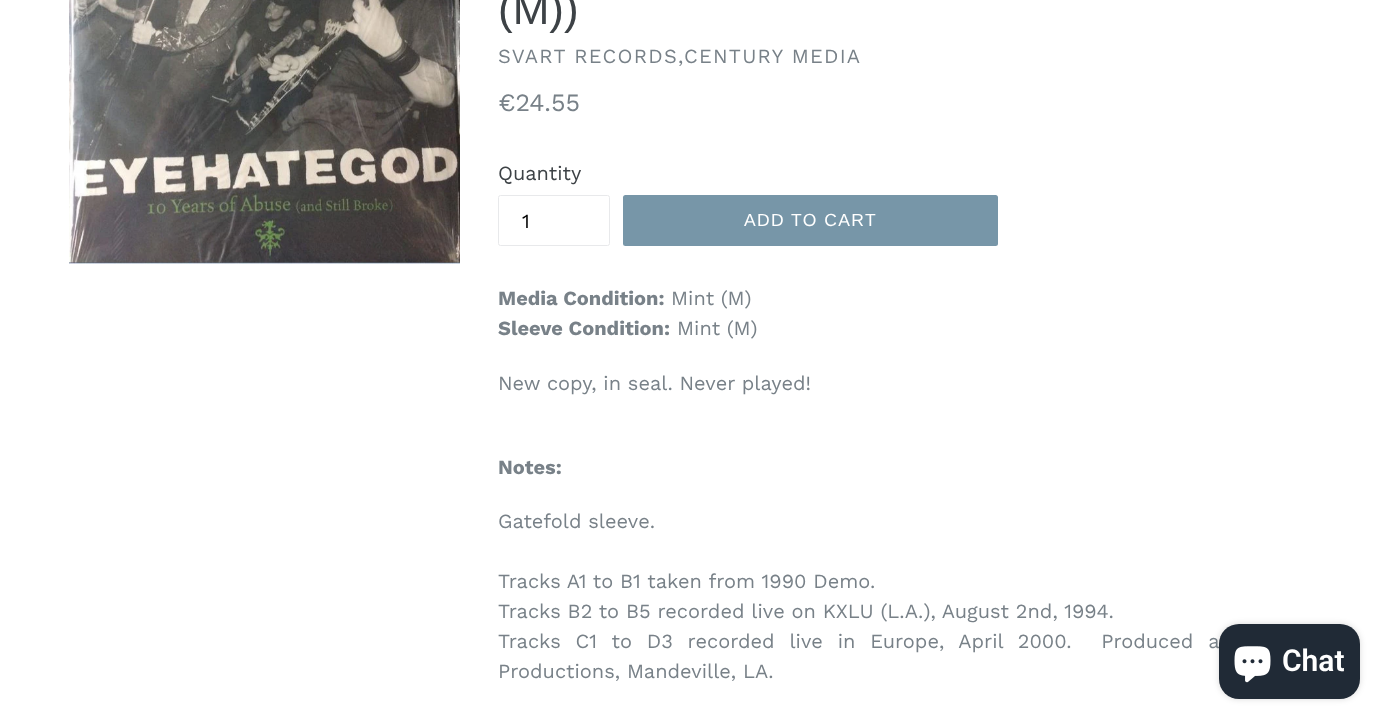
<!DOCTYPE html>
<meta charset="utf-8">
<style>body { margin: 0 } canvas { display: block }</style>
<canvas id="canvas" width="1387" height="724"></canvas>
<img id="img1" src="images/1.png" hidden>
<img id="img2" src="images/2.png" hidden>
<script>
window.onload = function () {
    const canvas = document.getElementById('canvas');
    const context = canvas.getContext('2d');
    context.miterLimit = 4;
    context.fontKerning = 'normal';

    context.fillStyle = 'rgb(255, 255, 255)';
    context.fillRect(0, 0, 1387, 724);
    context.drawImage(document.getElementById('img1'), 69, 0, 391, 264);
    context.beginPath();
    context.roundRect(498.5, 195.5, 111, 50, 2);
    context.strokeStyle = 'rgb(232, 233, 235)';
    context.stroke();
    context.fillStyle = 'rgb(119, 150, 168)';
    context.beginPath();
    context.roundRect(623, 195, 375, 51, 2.5);
    context.fill();
    context.fillStyle = 'rgba(0, 0, 0, 0.15)';
    context.filter = 'blur(3px)';
    context.beginPath();
    context.roundRect(1219, 624, 141, 75, 20);
    context.fill();
    context.filter = 'none';
    context.fillStyle = 'rgb(32, 42, 54)';
    context.beginPath();
    context.roundRect(1219, 624, 141, 75, 20);
    context.fill();
    context.drawImage(document.getElementById('img2'), 1234, 646, 37, 37);
    context.font = '44px Liberation Sans';
    context.fillStyle = 'rgb(61, 66, 70)';
    context.fillText('(M))', 498, 24);
    context.letterSpacing = '1.25px';
    context.font = '20px Work Sans';
    context.fillStyle = 'rgb(120, 129, 136)';
    context.fillText('SVART RECORDS,CENTURY MEDIA', 498, 63);
    context.letterSpacing = '0px';
    context.font = '25px Work Sans';
    context.fillText('€24.55', 498, 111);
    context.font = '20px Work Sans';
    context.fillStyle = 'rgb(61, 66, 70)';
    context.fillText('Quantity', 498, 180);
    context.fillStyle = 'rgb(0, 0, 0)';
    context.fillText('1', 522, 228);
    context.letterSpacing = '1.4px';
    context.font = '17.5px Liberation Sans';
    context.fillStyle = 'rgb(255, 255, 255)';
    context.fillText('ADD TO CART', 744, 226);
    context.letterSpacing = '0px';
    context.font = 'bold 20px Work Sans';
    context.fillStyle = 'rgb(120, 129, 136)';
    context.fillText('Media Condition:', 498, 305);
    context.font = '20px Work Sans';
    context.fillText('Mint (M)', 671, 305);
    context.font = 'bold 20px Work Sans';
    context.fillText('Sleeve Condition:', 498, 335);
    context.font = '20px Work Sans';
    context.fillText('Mint (M)', 677, 335);
    context.fillText('New copy, in seal. Never played!', 498, 390);
    context.font = 'bold 20px Work Sans';
    context.fillText('Notes:', 498, 474);
    context.font = '20px Work Sans';
    context.fillText('Gatefold sleeve.', 498, 528);
    context.fillText('Tracks A1 to B1 taken from 1990 Demo.', 498, 588);
    context.fillText('Tracks B2 to B5 recorded live on KXLU (L.A.), August 2nd, 1994.', 498, 618);
    context.wordSpacing = '8px';
    context.fillText('Tracks C1 to D3 recorded live in Europe, April 2000.  Produced a', 498, 648);
    context.wordSpacing = '0px';
    context.fillText('Productions, Mandeville, LA.', 498, 678);
    context.font = '600 30px Roboto';
    context.fillStyle = 'rgb(255, 255, 255)';
    context.fillText('Chat', 1282, 671);
};
</script>
